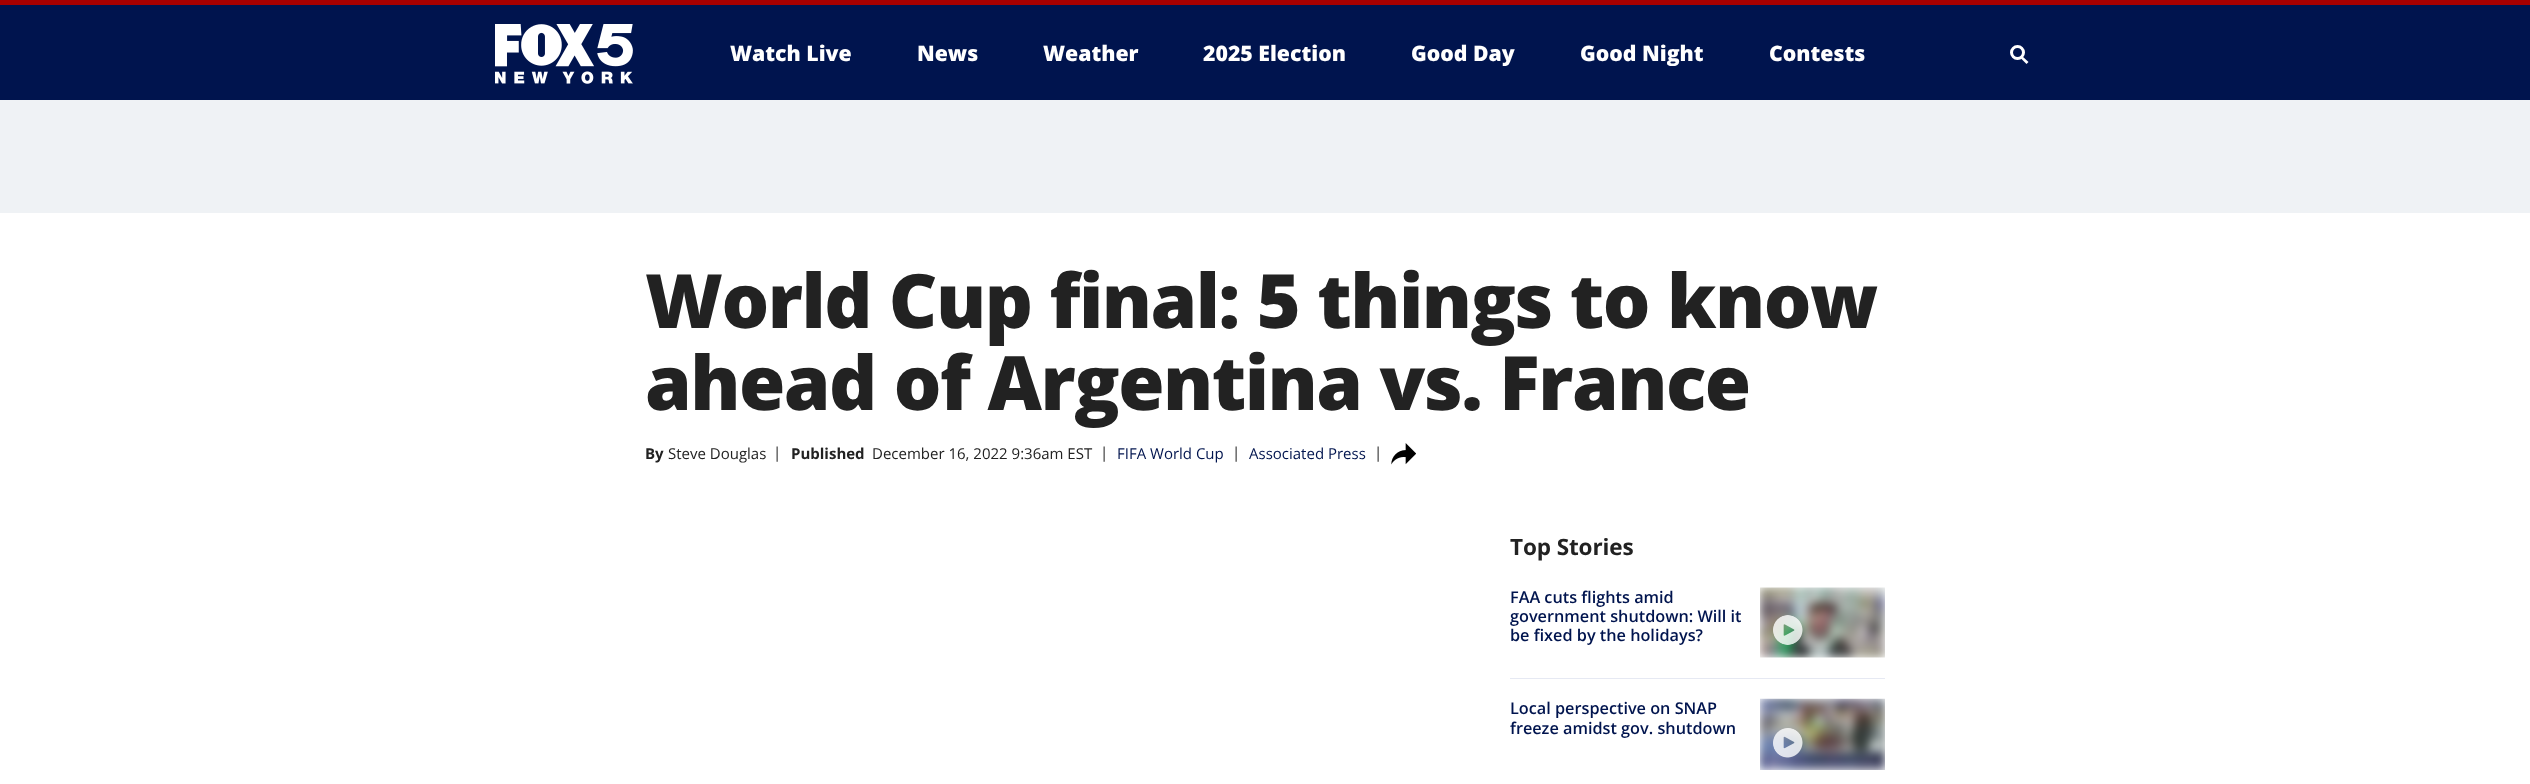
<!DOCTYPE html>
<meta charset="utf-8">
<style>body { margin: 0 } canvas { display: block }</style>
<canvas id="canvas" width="2530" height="784"></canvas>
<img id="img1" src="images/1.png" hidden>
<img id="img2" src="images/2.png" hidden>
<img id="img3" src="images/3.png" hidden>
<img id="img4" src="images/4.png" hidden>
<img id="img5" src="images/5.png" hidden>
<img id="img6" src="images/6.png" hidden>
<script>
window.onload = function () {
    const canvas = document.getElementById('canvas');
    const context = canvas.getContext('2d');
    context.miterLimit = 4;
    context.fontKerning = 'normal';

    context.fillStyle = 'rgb(255, 255, 255)';
    context.fillRect(0, 0, 2530, 784);
    context.fillStyle = 'rgb(0, 20, 78)';
    context.fillRect(0, 5, 2530, 95);
    context.fillStyle = 'rgb(167, 0, 0)';
    context.fillRect(0, 0, 2530, 5);
    context.drawImage(document.getElementById('img1'), 495, 24, 138, 60);
    context.beginPath();
    context.arc(2017.5, 52.5, 6, 0, 2 * Math.PI);
    context.strokeStyle = 'rgb(255, 255, 255)';
    context.lineWidth = 3;
    context.stroke();
    context.fillStyle = 'rgb(255, 255, 255)';
    context.beginPath();
    context.moveTo(2022, 56);
    context.lineTo(2028.5, 62);
    context.lineTo(2026.5, 64);
    context.lineTo(2020.5, 58);
    context.closePath();
    context.fill();
    context.fillStyle = 'rgb(239, 242, 245)';
    context.fillRect(0, 100, 2530, 113);
    context.drawImage(document.getElementById('img2'), 1391, 443, 25, 22);
    context.fillStyle = 'rgb(230, 233, 243)';
    context.fillRect(1510, 678, 375, 1);
    context.drawImage(document.getElementById('img3'), 1760, 587, 125, 71);
    context.drawImage(document.getElementById('img4'), 1773, 615, 30, 30);
    context.drawImage(document.getElementById('img5'), 1760, 698, 125, 72);
    context.drawImage(document.getElementById('img6'), 1773, 728, 30, 30);
    context.font = '800 21.25px Open Sans';
    context.fillStyle = 'rgb(255, 255, 255)';
    context.fillText('Watch Live', 730, 61);
    context.fillText('News', 917, 61);
    context.fillText('Weather', 1043, 61);
    context.fillText('2025 Election', 1203, 61);
    context.fillText('Good Day', 1411, 61);
    context.fillText('Good Night', 1580, 61);
    context.fillText('Contests', 1769, 61);
    context.letterSpacing = '-1.5px';
    context.font = '800 75px Open Sans';
    context.fillStyle = 'rgb(34, 34, 34)';
    context.fillText('World Cup final: 5 things to know', 645, 328);
    context.fillText('ahead of Argentina vs. France', 645, 410);
    context.letterSpacing = '0px';
    context.font = 'bold 15px Open Sans';
    context.fillText('By', 645, 459);
    context.font = '15px Open Sans';
    context.fillText('Steve Douglas', 668, 459);
    context.fillText('|', 773, 458);
    context.font = 'bold 15px Open Sans';
    context.fillText('Published', 791, 459);
    context.font = '15px Open Sans';
    context.fillText('December 16, 2022 9:36am EST', 872, 459);
    context.fillText('|', 1100, 458);
    context.fillStyle = 'rgb(0, 20, 78)';
    context.fillText('FIFA World Cup', 1117, 459);
    context.fillStyle = 'rgb(34, 34, 34)';
    context.fillText('|', 1232, 458);
    context.fillStyle = 'rgb(0, 20, 78)';
    context.fillText('Associated Press', 1249, 459);
    context.fillStyle = 'rgb(34, 34, 34)';
    context.fillText('|', 1374, 458);
    context.letterSpacing = '-0.1px';
    context.font = 'bold 22.5px Open Sans';
    context.fillText('Top Stories', 1510, 555);
    context.letterSpacing = '0px';
    context.font = '600 16.25px Open Sans';
    context.fillStyle = 'rgb(0, 20, 78)';
    context.fillText('FAA cuts flights amid', 1510, 603);
    context.fillText('government shutdown: Will it', 1510, 622);
    context.fillText('be fixed by the holidays?', 1510, 641);
    context.fillText('Local perspective on SNAP', 1510, 714);
    context.fillText('freeze amidst gov. shutdown', 1510, 734);
};
</script>
